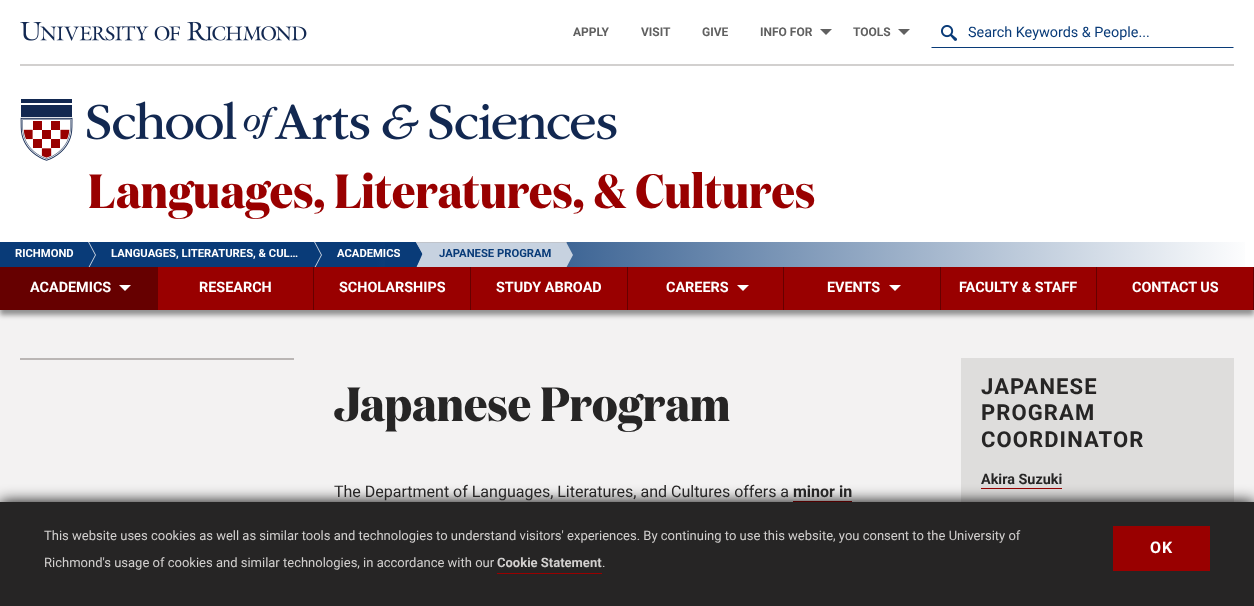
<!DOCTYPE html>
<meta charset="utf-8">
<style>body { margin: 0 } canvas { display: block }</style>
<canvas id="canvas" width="1254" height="606"></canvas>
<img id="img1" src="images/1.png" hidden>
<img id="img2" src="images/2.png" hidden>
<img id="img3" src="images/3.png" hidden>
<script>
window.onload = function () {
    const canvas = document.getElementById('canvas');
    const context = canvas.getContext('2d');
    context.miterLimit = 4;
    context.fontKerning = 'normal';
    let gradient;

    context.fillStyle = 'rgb(255, 255, 255)';
    context.fillRect(0, 0, 1254, 606);
    context.fillStyle = 'rgb(210, 208, 207)';
    context.fillRect(20, 64, 1214, 2);
    context.drawImage(document.getElementById('img1'), 20, 21, 287, 20);
    context.fillStyle = 'rgb(96, 96, 96)';
    context.beginPath();
    context.moveTo(820, 29);
    context.lineTo(832, 29);
    context.lineTo(826, 35);
    context.closePath();
    context.fill();
    context.beginPath();
    context.moveTo(898, 29);
    context.lineTo(910, 29);
    context.lineTo(904, 35);
    context.closePath();
    context.fill();
    context.drawImage(document.getElementById('img2'), 941, 25, 16, 16);
    context.fillStyle = 'rgb(9, 59, 120)';
    context.beginPath();
    context.moveTo(1234, 48);
    context.lineTo(931, 48);
    context.lineTo(932, 47);
    context.lineTo(1233, 47);
    context.closePath();
    context.fill();
    context.drawImage(document.getElementById('img3'), 20, 99, 597, 62);
    context.fillStyle = 'rgb(243, 242, 242)';
    context.fillRect(0, 310, 1254, 192);
    context.fillStyle = 'rgba(0, 0, 0, 0.4)';
    context.filter = 'blur(2.5px)';
    context.beginPath();
    context.rect(0, 272, 1254, 43);
    context.fill();
    context.filter = 'none';
    gradient = context.createLinearGradient(0, 255, 1254, 254);
    gradient.addColorStop(0.3, 'rgb(9, 59, 120)');
    gradient.addColorStop(1, 'rgb(255, 255, 255)');
    context.fillStyle = gradient;
    context.fillRect(0, 242, 1245, 25);
    context.save();
    context.beginPath();
    context.rect(0, 242, 1254, 25);
    context.clip();
    context.fillStyle = 'rgb(199, 210, 224)';
    context.beginPath();
    context.moveTo(88, 270);
    context.lineTo(88, 240);
    context.lineTo(96, 255);
    context.closePath();
    context.fill();
    context.fillStyle = 'rgb(9, 59, 120)';
    context.beginPath();
    context.moveTo(87, 270);
    context.lineTo(87, 240);
    context.lineTo(95, 255);
    context.closePath();
    context.fill();
    context.fillStyle = 'rgb(199, 210, 224)';
    context.beginPath();
    context.moveTo(314, 270);
    context.lineTo(314, 240);
    context.lineTo(322, 255);
    context.closePath();
    context.fill();
    context.fillStyle = 'rgb(9, 59, 120)';
    context.beginPath();
    context.moveTo(313, 270);
    context.lineTo(313, 240);
    context.lineTo(321, 255);
    context.closePath();
    context.fill();
    context.restore();
    context.fillStyle = 'rgb(9, 59, 120)';
    context.fillRect(385, 242, 30, 25);
    context.save();
    context.beginPath();
    context.rect(0, 242, 1254, 25);
    context.clip();
    context.fillStyle = 'rgb(199, 210, 224)';
    context.beginPath();
    context.moveTo(416, 270);
    context.lineTo(416, 240);
    context.lineTo(424, 255);
    context.closePath();
    context.fill();
    context.fillStyle = 'rgb(9, 59, 120)';
    context.beginPath();
    context.moveTo(415, 270);
    context.lineTo(415, 240);
    context.lineTo(423, 255);
    context.closePath();
    context.fill();
    context.fillStyle = 'rgb(199, 210, 224)';
    context.beginPath();
    context.moveTo(565, 270);
    context.lineTo(565, 240);
    context.lineTo(573, 255);
    context.closePath();
    context.fill();
    context.restore();
    context.fillStyle = 'rgb(199, 210, 224)';
    context.fillRect(424, 242, 141, 25);
    context.save();
    context.beginPath();
    context.rect(0, 242, 1254, 25);
    context.clip();
    context.beginPath();
    context.moveTo(415, 271);
    context.lineTo(423, 252.5);
    context.lineTo(428, 266);
    context.closePath();
    context.fill();
    context.beginPath();
    context.moveTo(424, 256);
    context.lineTo(414, 239);
    context.lineTo(428, 242.5);
    context.closePath();
    context.fill();
    context.restore();
    context.fillStyle = 'rgba(186, 182, 181, 0.5)';
    context.fillRect(416, 242, 151, 1);
    context.fillStyle = 'rgb(153, 0, 0)';
    context.fillRect(158, 267, 1095, 43);
    context.fillStyle = 'rgb(102, 0, 0)';
    context.fillRect(1253, 267, 1, 43);
    context.fillRect(0, 267, 158, 43);
    context.fillStyle = 'rgb(255, 255, 255)';
    context.beginPath();
    context.moveTo(119, 285);
    context.lineTo(131, 285);
    context.lineTo(125, 291);
    context.closePath();
    context.fill();
    context.fillStyle = 'rgb(102, 0, 0)';
    context.fillRect(313, 267, 1, 43);
    context.fillRect(470, 267, 1, 43);
    context.fillRect(627, 267, 1, 43);
    context.fillRect(783, 267, 1, 43);
    context.fillStyle = 'rgb(255, 255, 255)';
    context.beginPath();
    context.moveTo(737, 285);
    context.lineTo(749, 285);
    context.lineTo(743, 291);
    context.closePath();
    context.fill();
    context.fillStyle = 'rgb(102, 0, 0)';
    context.fillRect(940, 267, 1, 43);
    context.fillStyle = 'rgb(255, 255, 255)';
    context.beginPath();
    context.moveTo(889, 285);
    context.lineTo(901, 285);
    context.lineTo(895, 291);
    context.closePath();
    context.fill();
    context.fillStyle = 'rgb(102, 0, 0)';
    context.fillRect(1096, 267, 1, 43);
    context.fillStyle = 'rgb(186, 182, 181)';
    context.fillRect(20, 358, 274, 2);
    context.fillStyle = 'rgb(153, 0, 0)';
    context.fillRect(793, 501, 59, 1);
    context.fillStyle = 'rgb(222, 221, 220)';
    context.fillRect(961, 358, 273, 144);
    context.fillStyle = 'rgb(153, 0, 0)';
    context.fillRect(981, 488, 81, 1);
    context.fillStyle = 'rgb(0, 0, 0)';
    context.filter = 'blur(7.5px)';
    context.beginPath();
    context.rect(0, 502, 1254, 104);
    context.fill();
    context.filter = 'none';
    context.fillStyle = 'rgb(38, 37, 37)';
    context.fillRect(0, 502, 1254, 104);
    context.fillStyle = 'rgb(153, 0, 0)';
    context.fillRect(497, 573, 105, 1);
    context.fillRect(1113, 526, 97, 45);
    context.font = 'bold 12px Roboto';
    context.fillStyle = 'rgb(96, 96, 96)';
    context.fillText('APPLY', 573, 36);
    context.fillText('VISIT', 641, 36);
    context.fillText('GIVE', 702, 36);
    context.fillText('INFO FOR', 760, 36);
    context.fillText('TOOLS', 853, 36);
    context.font = '14.4px Roboto';
    context.fillStyle = 'rgb(9, 59, 120)';
    context.fillText('Search Keywords & People...', 968, 37);
    context.font = 'bold 48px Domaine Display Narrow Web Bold';
    context.fillStyle = 'rgb(153, 0, 0)';
    context.fillText('Languages, Literatures, & Cultures', 88, 208);
    context.font = 'bold 11.25px Roboto';
    context.fillStyle = 'rgb(255, 255, 255)';
    context.fillText('RICHMOND', 15, 257);
    context.fillText('LANGUAGES, LITERATURES, & CUL…', 111, 257);
    context.fillText('ACADEMICS', 337, 257);
    context.fillStyle = 'rgb(9, 59, 120)';
    context.fillText('JAPANESE PROGRAM', 439, 257);
    context.font = 'bold 14.4px Roboto';
    context.fillStyle = 'rgb(255, 255, 255)';
    context.fillText('ACADEMICS', 30, 292);
    context.fillText('RESEARCH', 199, 292);
    context.fillText('SCHOLARSHIPS', 339, 292);
    context.fillText('STUDY ABROAD', 496, 292);
    context.fillText('CAREERS', 666, 292);
    context.fillText('EVENTS', 827, 292);
    context.fillText('FACULTY & STAFF', 959, 292);
    context.fillText('CONTACT US', 1132, 292);
    context.font = 'bold 48px Domaine Display Narrow Web Bold';
    context.fillStyle = 'rgb(38, 37, 37)';
    context.fillText('Japanese Program', 334, 421);
    context.font = '16px Roboto';
    context.fillText('The Department of Languages, Literatures, and Cultures offers a', 334, 497);
    context.font = 'bold 16px Roboto';
    context.fillText('minor in', 793, 497);
    context.letterSpacing = '1.1px';
    context.font = 'bold 22px Roboto';
    context.fillText('JAPANESE', 981, 394);
    context.fillText('PROGRAM', 981, 420);
    context.fillText('COORDINATOR', 981, 447);
    context.letterSpacing = '0px';
    context.font = 'bold 14.4px Roboto';
    context.fillText('Akira Suzuki', 981, 484);
    context.font = '13px Roboto';
    context.fillStyle = 'rgb(210, 208, 207)';
    context.fillText('This website uses cookies as well as similar tools and technologies to understand visitors\' experiences. By continuing to use this website, you consent to the University of', 44, 540);
    context.fillText('Richmond\'s usage of cookies and similar technologies, in accordance with our', 44, 567);
    context.font = 'bold 13px Roboto';
    context.fillText('Cookie Statement', 497, 567);
    context.font = '13px Roboto';
    context.fillText('.', 602, 567);
    context.letterSpacing = '1px';
    context.font = 'bold 16px Roboto';
    context.fillStyle = 'rgb(255, 255, 255)';
    context.fillText('OK', 1150, 553);
};
</script>
